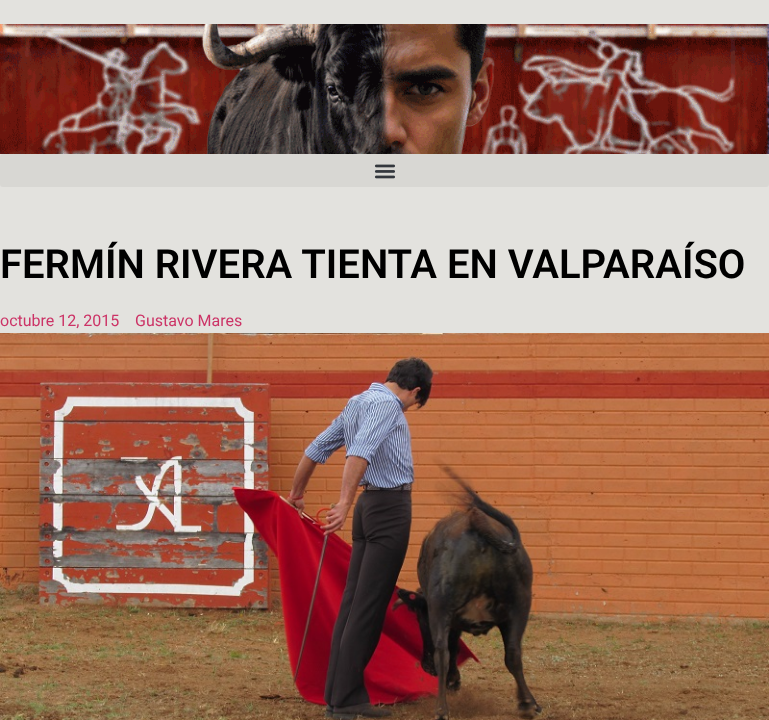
<!DOCTYPE html>
<meta charset="utf-8">
<style>body { margin: 0 } canvas { display: block }</style>
<canvas id="canvas" width="769" height="720"></canvas>
<img id="img1" src="images/1.png" hidden>
<img id="img2" src="images/2.png" hidden>
<img id="img3" src="images/3.png" hidden>
<script>
window.onload = function () {
    const canvas = document.getElementById('canvas');
    const context = canvas.getContext('2d');
    context.miterLimit = 4;
    context.fontKerning = 'normal';

    context.fillStyle = 'rgb(227, 226, 222)';
    context.fillRect(0, 0, 769, 720);
    context.drawImage(document.getElementById('img1'), 0, 24, 769, 130);
    context.fillStyle = 'rgb(216, 215, 211)';
    context.beginPath();
    context.roundRect(0, 154, 769, 33, 3);
    context.fill();
    context.drawImage(document.getElementById('img2'), 374, 164, 21, 15);
    context.drawImage(document.getElementById('img3'), 0, 333, 769, 387);
    context.font = '600 40px Roboto';
    context.fillStyle = 'rgb(0, 0, 0)';
    context.fillText('FERMÍN RIVERA TIENTA EN VALPARAÍSO', 0, 278);
    context.font = '16px Roboto';
    context.fillStyle = 'rgb(204, 51, 102)';
    context.fillText('octubre 12, 2015', 0, 326);
    context.fillText('Gustavo Mares', 135, 326);
};
</script>
